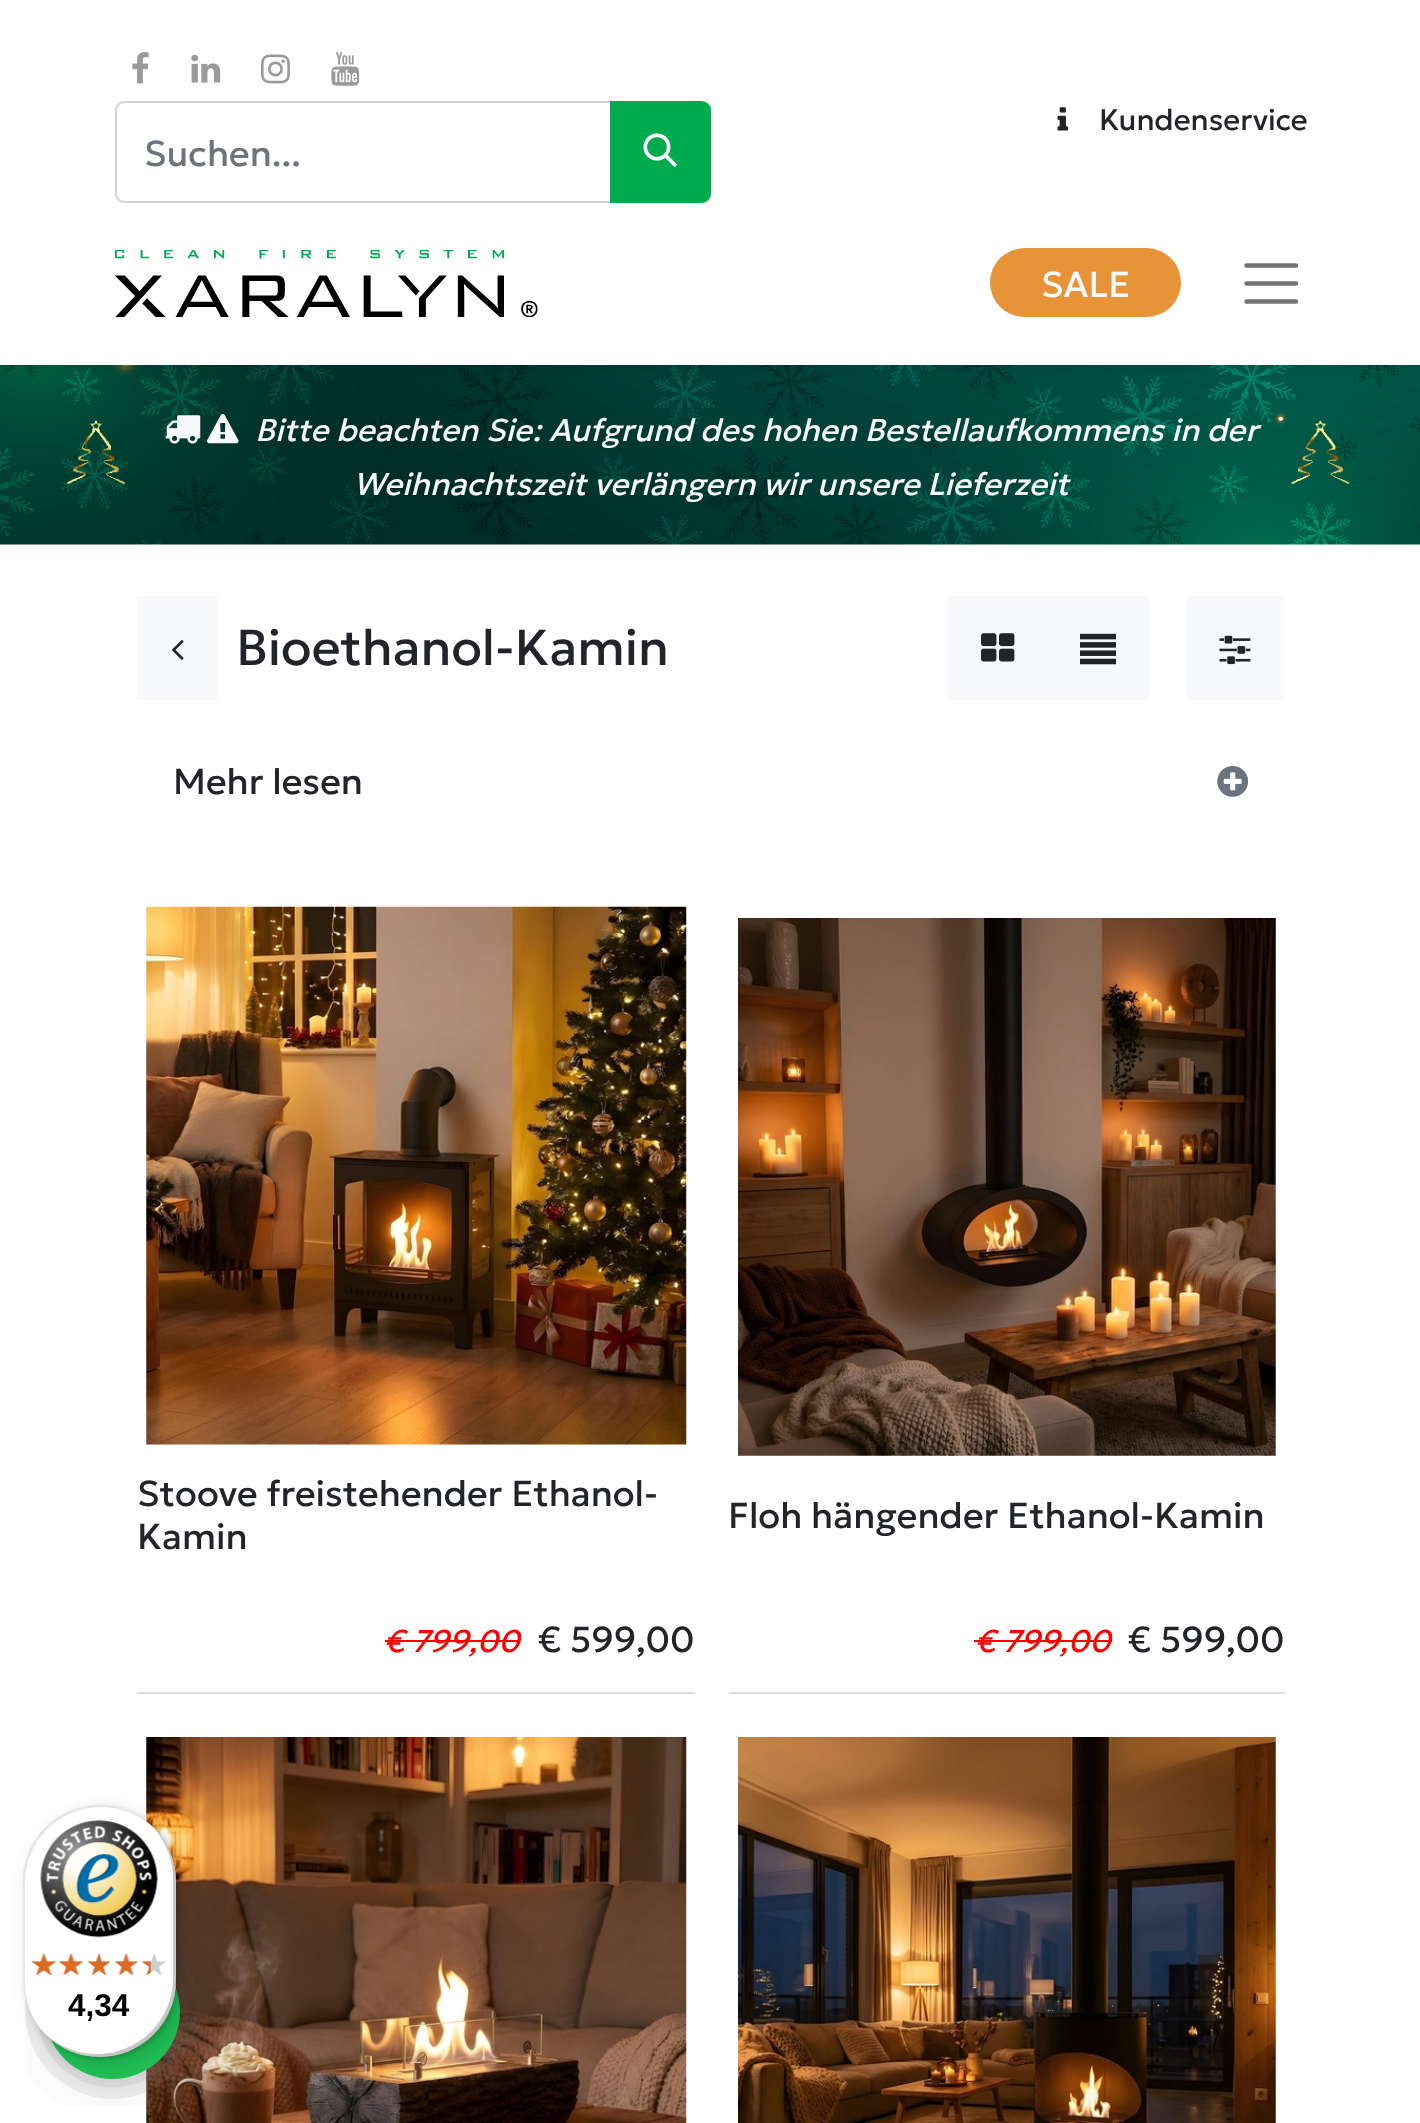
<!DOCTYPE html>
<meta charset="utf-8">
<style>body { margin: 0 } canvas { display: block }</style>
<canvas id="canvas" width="1420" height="2123"></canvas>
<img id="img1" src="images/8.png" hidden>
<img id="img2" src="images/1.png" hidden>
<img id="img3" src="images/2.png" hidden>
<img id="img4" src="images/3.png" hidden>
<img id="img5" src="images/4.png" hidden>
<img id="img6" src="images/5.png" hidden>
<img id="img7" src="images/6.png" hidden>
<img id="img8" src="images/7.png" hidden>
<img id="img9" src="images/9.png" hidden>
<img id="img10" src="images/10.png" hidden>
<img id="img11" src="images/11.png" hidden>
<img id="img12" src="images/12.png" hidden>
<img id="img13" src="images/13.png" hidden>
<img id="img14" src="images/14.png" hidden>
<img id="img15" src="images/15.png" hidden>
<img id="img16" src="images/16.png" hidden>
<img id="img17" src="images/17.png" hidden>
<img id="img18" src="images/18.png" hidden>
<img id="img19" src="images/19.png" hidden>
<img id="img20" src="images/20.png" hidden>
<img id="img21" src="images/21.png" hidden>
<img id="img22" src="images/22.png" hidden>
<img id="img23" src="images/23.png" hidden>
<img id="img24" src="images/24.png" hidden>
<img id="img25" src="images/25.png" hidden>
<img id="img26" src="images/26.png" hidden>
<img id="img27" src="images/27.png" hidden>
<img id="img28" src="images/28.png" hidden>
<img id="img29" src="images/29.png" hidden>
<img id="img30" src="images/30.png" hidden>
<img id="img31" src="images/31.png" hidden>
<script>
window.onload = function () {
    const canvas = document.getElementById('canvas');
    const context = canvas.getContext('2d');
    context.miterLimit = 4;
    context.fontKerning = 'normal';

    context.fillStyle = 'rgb(255, 255, 255)';
    context.fillRect(0, 0, 1420, 2123);
    context.drawImage(document.getElementById('img1'), 0, 365, 1420, 180);
    context.fillStyle = 'rgba(0, 0, 0, 0.07)';
    context.filter = 'blur(4.5px)';
    context.beginPath();
    context.rect(0, 5, 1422, 364);
    context.fill();
    context.filter = 'none';
    context.fillStyle = 'rgb(255, 255, 255)';
    context.fillRect(0, 0, 1420, 365);
    context.drawImage(document.getElementById('img2'), 1057, 107, 12, 24);
    context.drawImage(document.getElementById('img3'), 132, 52, 17, 32);
    context.drawImage(document.getElementById('img4'), 191, 54, 30, 29);
    context.drawImage(document.getElementById('img5'), 261, 54, 29, 30);
    context.drawImage(document.getElementById('img6'), 331, 52, 29, 34);
    context.beginPath();
    context.roundRect(116, 102, 495, 100, [8, 0, 0, 8]);
    context.strokeStyle = 'rgb(206, 212, 218)';
    context.lineWidth = 2;
    context.stroke();
    context.fillStyle = 'rgb(0, 171, 78)';
    context.beginPath();
    context.roundRect(611, 102, 99, 100, [0, 8, 8, 0]);
    context.fill();
    context.strokeStyle = 'rgb(0, 171, 78)';
    context.stroke();
    context.drawImage(document.getElementById('img7'), 643, 133, 35, 35);
    context.drawImage(document.getElementById('img8'), 115, 250, 423, 67);
    context.fillStyle = 'rgb(231, 148, 57)';
    context.beginPath();
    context.roundRect(990, 248, 191, 69, 34.5);
    context.fill();
    context.beginPath();
    context.moveTo(1246.5, 265.5);
    context.lineTo(1296, 265.5);
    context.moveTo(1246.5, 283.5);
    context.lineTo(1296, 283.5);
    context.moveTo(1246.5, 301.5);
    context.lineTo(1296, 301.5);
    context.strokeStyle = 'rgb(115, 115, 115)';
    context.lineWidth = 4.5;
    context.lineCap = 'round';
    context.stroke();
    context.drawImage(document.getElementById('img9'), 165, 415, 36, 29);
    context.drawImage(document.getElementById('img10'), 207, 414, 32, 30);
    context.fillStyle = 'rgb(248, 249, 250)';
    context.fillRect(137, 596, 81, 104);
    context.drawImage(document.getElementById('img11'), 172, 640, 12, 20);
    context.fillRect(947, 596, 203, 104);
    context.drawImage(document.getElementById('img12'), 1080, 633, 36, 32);
    context.drawImage(document.getElementById('img13'), 981, 633, 34, 29);
    context.fillRect(1186, 596, 99, 104);
    context.drawImage(document.getElementById('img14'), 1219, 635, 32, 30);
    context.drawImage(document.getElementById('img15'), 1217, 766, 32, 31);
    context.fillStyle = 'rgb(223, 223, 223)';
    context.fillRect(137, 1692, 558, 2);
    context.drawImage(document.getElementById('img16'), 146, 906, 541, 539);
    context.fillStyle = 'rgb(255, 0, 0)';
    context.fillRect(385, 1640, 135, 2);
    context.fillStyle = 'rgb(223, 223, 223)';
    context.fillRect(729, 1692, 556, 2);
    context.drawImage(document.getElementById('img17'), 738, 918, 538, 538);
    context.fillStyle = 'rgb(255, 0, 0)';
    context.fillRect(974, 1640, 138, 2);
    context.drawImage(document.getElementById('img18'), 146, 1737, 541, 386);
    context.drawImage(document.getElementById('img19'), 738, 1737, 538, 386);
    context.drawImage(document.getElementById('img20'), 25, 1927, 175, 179);
    context.fillStyle = 'rgba(0, 0, 0, 0.15)';
    context.filter = 'blur(9px)';
    context.beginPath();
    context.roundRect(29, 1811, 153, 252, 76.5);
    context.fill();
    context.filter = 'none';
    context.filter = 'blur(2px)';
    context.beginPath();
    context.roundRect(25, 1807, 153, 252, 76.5);
    context.fill();
    context.filter = 'none';
    context.fillStyle = 'rgb(255, 255, 255)';
    context.beginPath();
    context.roundRect(23, 1805, 153, 252, 76.5);
    context.fill();
    context.fillStyle = 'rgba(0, 0, 0, 0.1)';
    context.beginPath();
    context.moveTo(101, 1807);
    context.bezierCurveTo(123, 1807, 143, 1816, 157, 1831);
    context.bezierCurveTo(143, 1815, 122, 1805, 100, 1805);
    context.bezierCurveTo(57, 1805, 23, 1839, 23, 1882);
    context.lineTo(23, 1980);
    context.bezierCurveTo(23, 2003, 33, 2024, 49, 2038);
    context.bezierCurveTo(34, 2024, 25, 2004, 25, 1982);
    context.lineTo(25, 1883);
    context.bezierCurveTo(25, 1841, 59, 1807, 101, 1807);
    context.closePath();
    context.fill();
    context.fillStyle = 'rgba(0, 0, 0, 0.2)';
    context.beginPath();
    context.moveTo(42, 2031);
    context.bezierCurveTo(56, 2047, 77, 2057, 100, 2057);
    context.bezierCurveTo(142, 2057, 176, 2023, 176, 1980);
    context.lineTo(176, 1882);
    context.bezierCurveTo(176, 1859, 166, 1838, 150, 1824);
    context.bezierCurveTo(164, 1838, 173, 1858, 173, 1879);
    context.lineTo(173, 1978);
    context.bezierCurveTo(173, 2020, 139, 2054, 97, 2054);
    context.bezierCurveTo(76, 2054, 56, 2045, 42, 2031);
    context.closePath();
    context.fill();
    context.fillStyle = 'rgba(50, 50, 50, 0.2)';
    context.beginPath();
    context.moveTo(47, 2036);
    context.bezierCurveTo(60, 2049, 79, 2057, 100, 2057);
    context.bezierCurveTo(142, 2057, 176, 2023, 176, 1980);
    context.lineTo(176, 1882);
    context.bezierCurveTo(176, 1861, 168, 1842, 155, 1829);
    context.bezierCurveTo(167, 1842, 174, 1860, 174, 1880);
    context.lineTo(174, 1979);
    context.bezierCurveTo(174, 2021, 140, 2055, 98, 2055);
    context.bezierCurveTo(78, 2055, 60, 2048, 47, 2036);
    context.closePath();
    context.fill();
    context.fillStyle = 'rgba(255, 255, 255, 0.3)';
    context.beginPath();
    context.moveTo(42, 2031);
    context.bezierCurveTo(56, 2047, 77, 2057, 100, 2057);
    context.bezierCurveTo(142, 2057, 176, 2023, 176, 1980);
    context.lineTo(176, 1882);
    context.bezierCurveTo(176, 1859, 166, 1838, 150, 1824);
    context.bezierCurveTo(165, 1838, 174, 1858, 174, 1880);
    context.lineTo(174, 1979);
    context.bezierCurveTo(174, 2021, 140, 2055, 98, 2055);
    context.bezierCurveTo(76, 2055, 56, 2046, 42, 2031);
    context.closePath();
    context.fill();
    context.drawImage(document.getElementById('img21'), 40, 1820, 118, 118);
    context.drawImage(document.getElementById('img22'), 31, 1953, 25, 22);
    context.drawImage(document.getElementById('img23'), 61, 1953, 22, 23);
    context.drawImage(document.getElementById('img24'), 88, 1953, 22, 22);
    context.drawImage(document.getElementById('img25'), 115, 1953, 25, 23);
    context.drawImage(document.getElementById('img26'), 142, 1953, 25, 22);
    context.drawImage(document.getElementById('img27'), 31, 1953, 26, 22);
    context.drawImage(document.getElementById('img28'), 58, 1953, 26, 22);
    context.drawImage(document.getElementById('img29'), 87, 1953, 24, 22);
    context.drawImage(document.getElementById('img30'), 114, 1953, 24, 22);
    context.drawImage(document.getElementById('img31'), 141, 1961, 10, 14);
    context.font = '29.5px Geologica';
    context.fillStyle = 'rgb(33, 37, 41)';
    context.fillText('Kundenservice', 1099, 130);
    context.font = '36px Geologica';
    context.fillStyle = 'rgb(108, 117, 125)';
    context.fillText('Suchen...', 144, 166);
    context.fillStyle = 'rgb(248, 249, 250)';
    context.fillText('SALE', 1041, 297);
    context.font = 'italic 31.5px Geologica';
    context.fillText('Bitte beachten Sie: Aufgrund des hohen Bestellaufkommens in der', 255, 441);
    context.fillText('Weihnachtszeit verlängern wir unsere Lieferzeit', 353, 495);
    context.font = '50.25px Geologica';
    context.fillStyle = 'rgb(33, 37, 41)';
    context.fillText('Bioethanol-Kamin', 236, 665);
    context.font = '36px Geologica';
    context.fillText('Mehr lesen', 173, 794);
    context.fillText('Stoove freistehender Ethanol-', 137, 1506);
    context.fillText('Kamin', 137, 1549);
    context.font = 'italic 31.5px Geologica';
    context.fillStyle = 'rgb(255, 0, 0)';
    context.fillText('€ 799,00', 384, 1652);
    context.font = '36px Geologica';
    context.fillStyle = 'rgb(33, 37, 41)';
    context.fillText('€ 599,00', 538, 1652);
    context.fillText('Floh hängender Ethanol-Kamin', 728, 1528);
    context.font = 'italic 31.5px Geologica';
    context.fillStyle = 'rgb(255, 0, 0)';
    context.fillText('€ 799,00', 975, 1652);
    context.font = '36px Geologica';
    context.fillStyle = 'rgb(33, 37, 41)';
    context.fillText('€ 599,00', 1128, 1652);
    context.font = 'bold 31.5px Liberation Sans';
    context.fillStyle = 'rgb(0, 0, 0)';
    context.fillText('4,34', 68, 2016);
};
</script>
